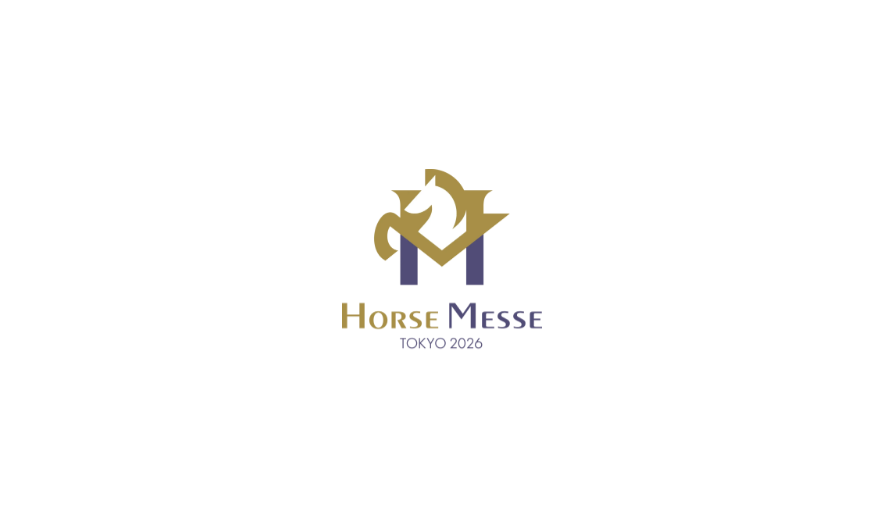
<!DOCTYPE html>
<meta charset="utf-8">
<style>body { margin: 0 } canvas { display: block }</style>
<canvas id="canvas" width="884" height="521"></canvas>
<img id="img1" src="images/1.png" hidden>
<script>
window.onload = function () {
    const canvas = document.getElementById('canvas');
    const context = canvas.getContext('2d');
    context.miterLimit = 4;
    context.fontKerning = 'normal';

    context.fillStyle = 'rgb(255, 255, 255)';
    context.fillRect(0, 0, 884, 521);
    context.drawImage(document.getElementById('img1'), 342, 169, 200, 181);
};
</script>
